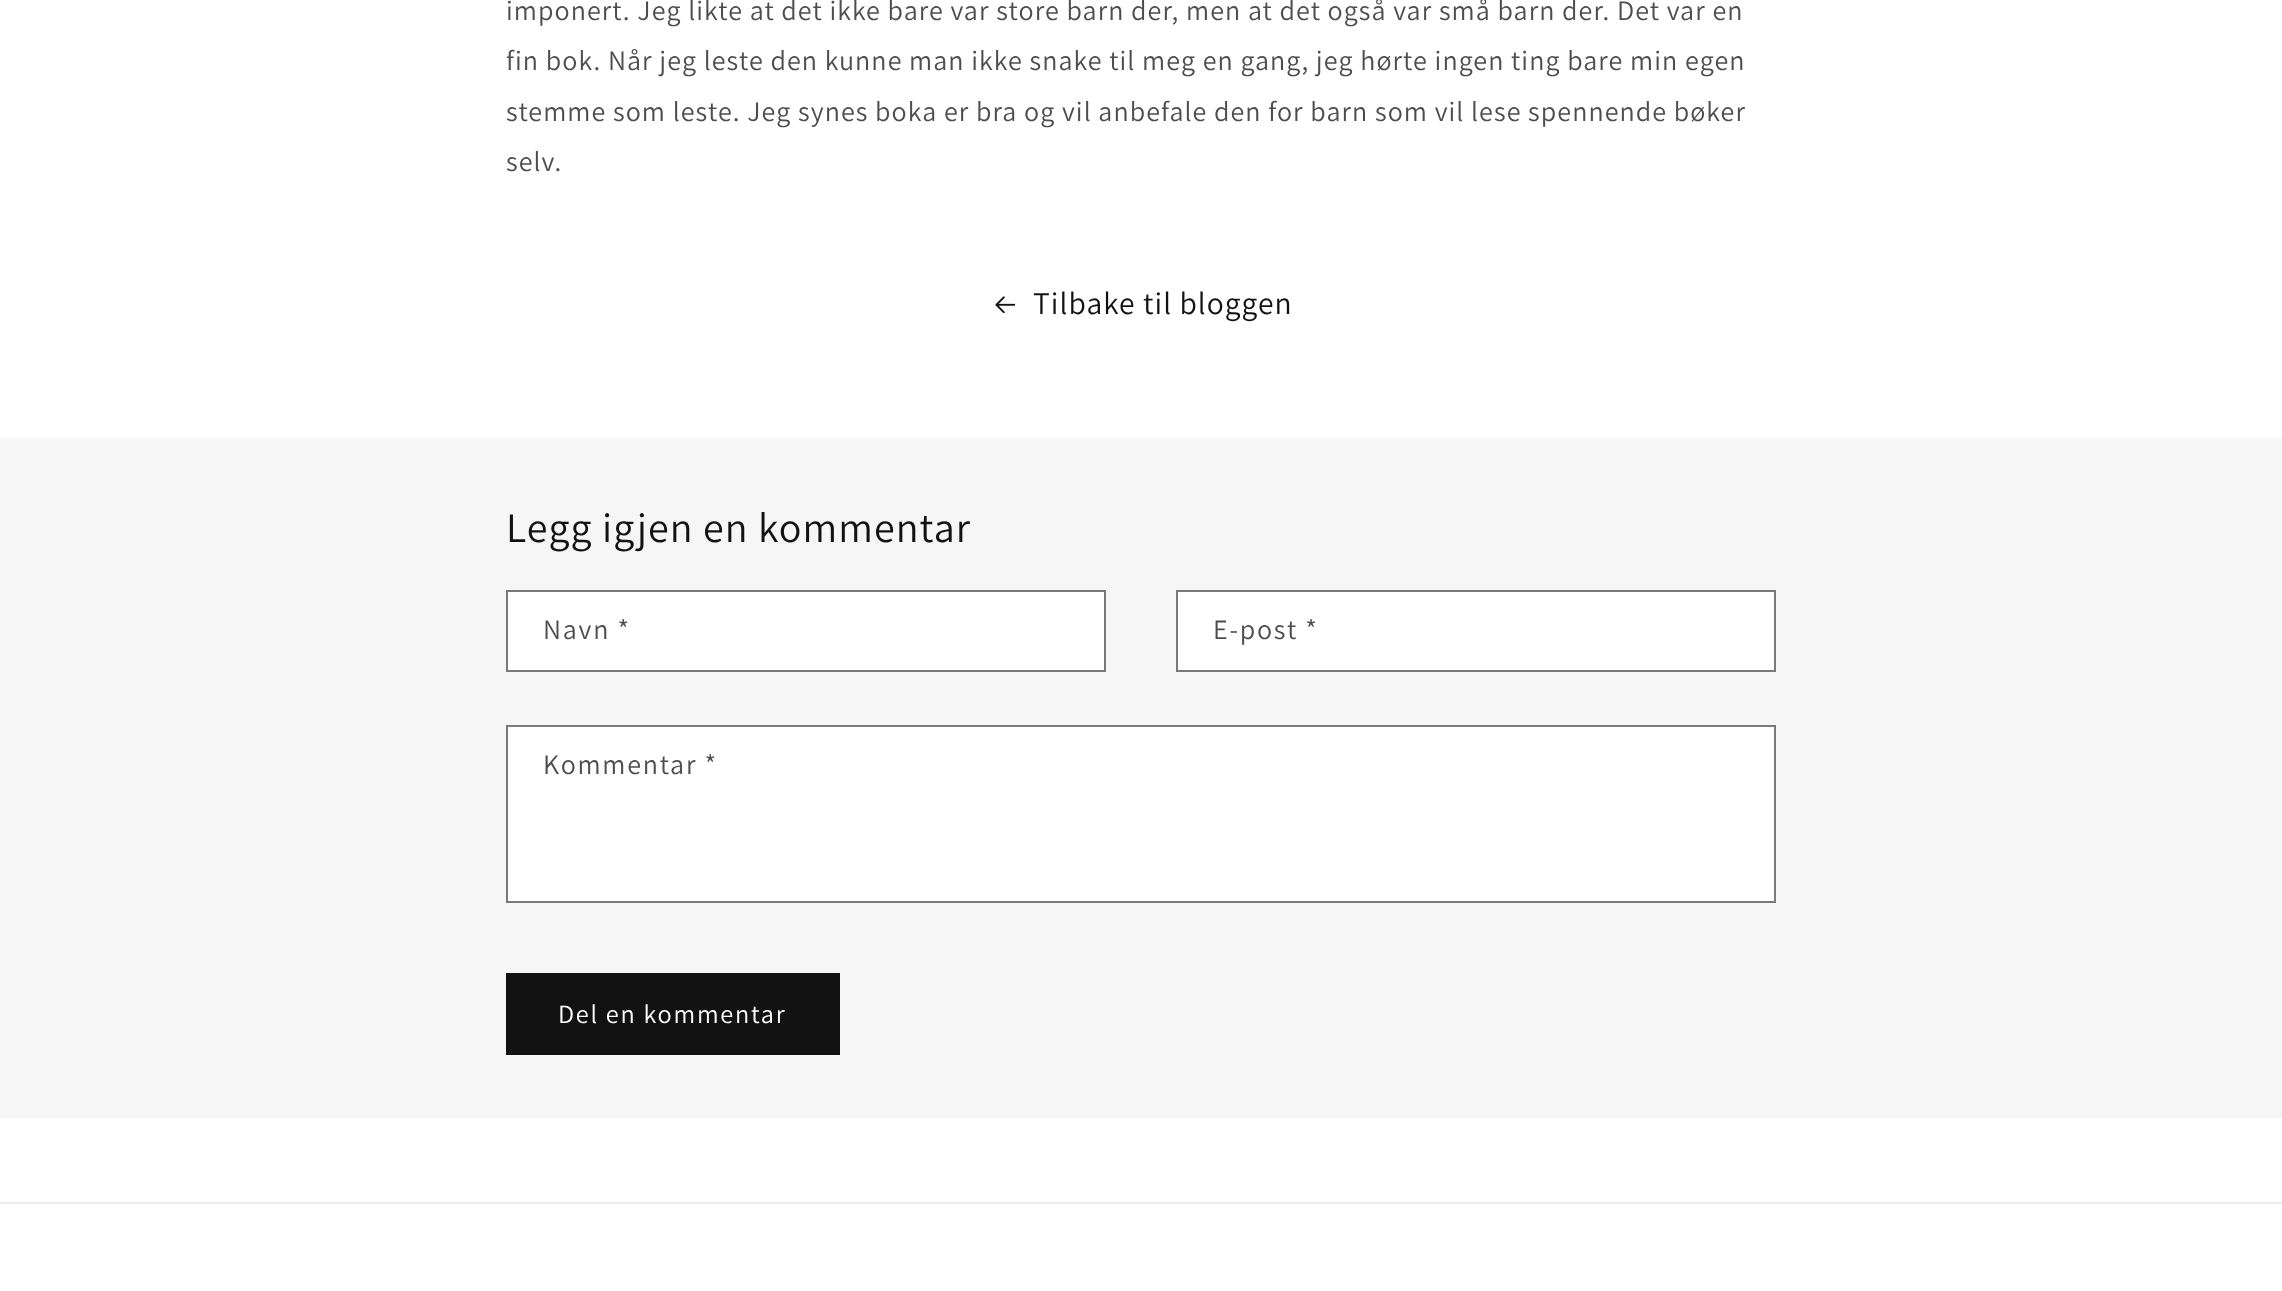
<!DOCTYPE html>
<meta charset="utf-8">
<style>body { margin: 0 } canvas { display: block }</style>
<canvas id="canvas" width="2282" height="1291"></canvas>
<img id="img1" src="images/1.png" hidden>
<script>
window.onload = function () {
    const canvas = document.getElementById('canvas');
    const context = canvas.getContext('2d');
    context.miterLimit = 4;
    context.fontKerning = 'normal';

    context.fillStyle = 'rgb(255, 255, 255)';
    context.fillRect(0, 0, 2282, 1291);
    context.drawImage(document.getElementById('img1'), 995, 296, 20, 17);
    context.fillStyle = 'rgb(246, 246, 246)';
    context.fillRect(0, 438, 2282, 680);
    context.fillStyle = 'rgb(255, 255, 255)';
    context.fillRect(508, 592, 596, 78);
    context.strokeStyle = 'rgb(121, 121, 121)';
    context.lineWidth = 2;
    context.strokeRect(507, 591, 598, 80);
    context.fillRect(1178, 592, 597, 78);
    context.strokeStyle = 'rgba(18, 18, 18, 0.55)';
    context.strokeRect(1177, 591, 598, 80);
    context.fillRect(508, 726, 1267, 175);
    context.strokeRect(507, 726, 1268, 176);
    context.fillStyle = 'rgb(18, 18, 18)';
    context.fillRect(506, 973, 334, 82);
    context.fillStyle = 'rgb(236, 236, 236)';
    context.fillRect(0, 1202, 2282, 2);
    context.letterSpacing = '1.05px';
    context.font = '28px Assistant';
    context.fillStyle = 'rgb(77, 77, 77)';
    context.fillText('imponert. Jeg likte at det ikke bare var store barn der, men at det også var små barn der. Det var en', 506, 20);
    context.fillText('fin bok. Når jeg leste den kunne man ikke snake til meg en gang, jeg hørte ingen ting bare min egen', 506, 70);
    context.fillText('stemme som leste. Jeg synes boka er bra og vil anbefale den for barn som vil lese spennende bøker', 506, 121);
    context.fillText('selv.', 506, 171);
    context.font = '31.5px Assistant';
    context.fillStyle = 'rgb(18, 18, 18)';
    context.fillText('Tilbake til bloggen', 1033, 314);
    context.font = '42px Assistant';
    context.fillText('Legg igjen en kommentar', 506, 542);
    context.letterSpacing = '1.75px';
    context.font = '28px Assistant';
    context.fillStyle = 'rgb(77, 77, 77)';
    context.fillText('Navn *', 543, 639);
    context.fillText('E-post *', 1213, 639);
    context.fillText('Kommentar *', 543, 774);
    context.font = '26.25px Assistant';
    context.fillStyle = 'rgb(255, 255, 255)';
    context.fillText('Del en kommentar', 558, 1023);
};
</script>
